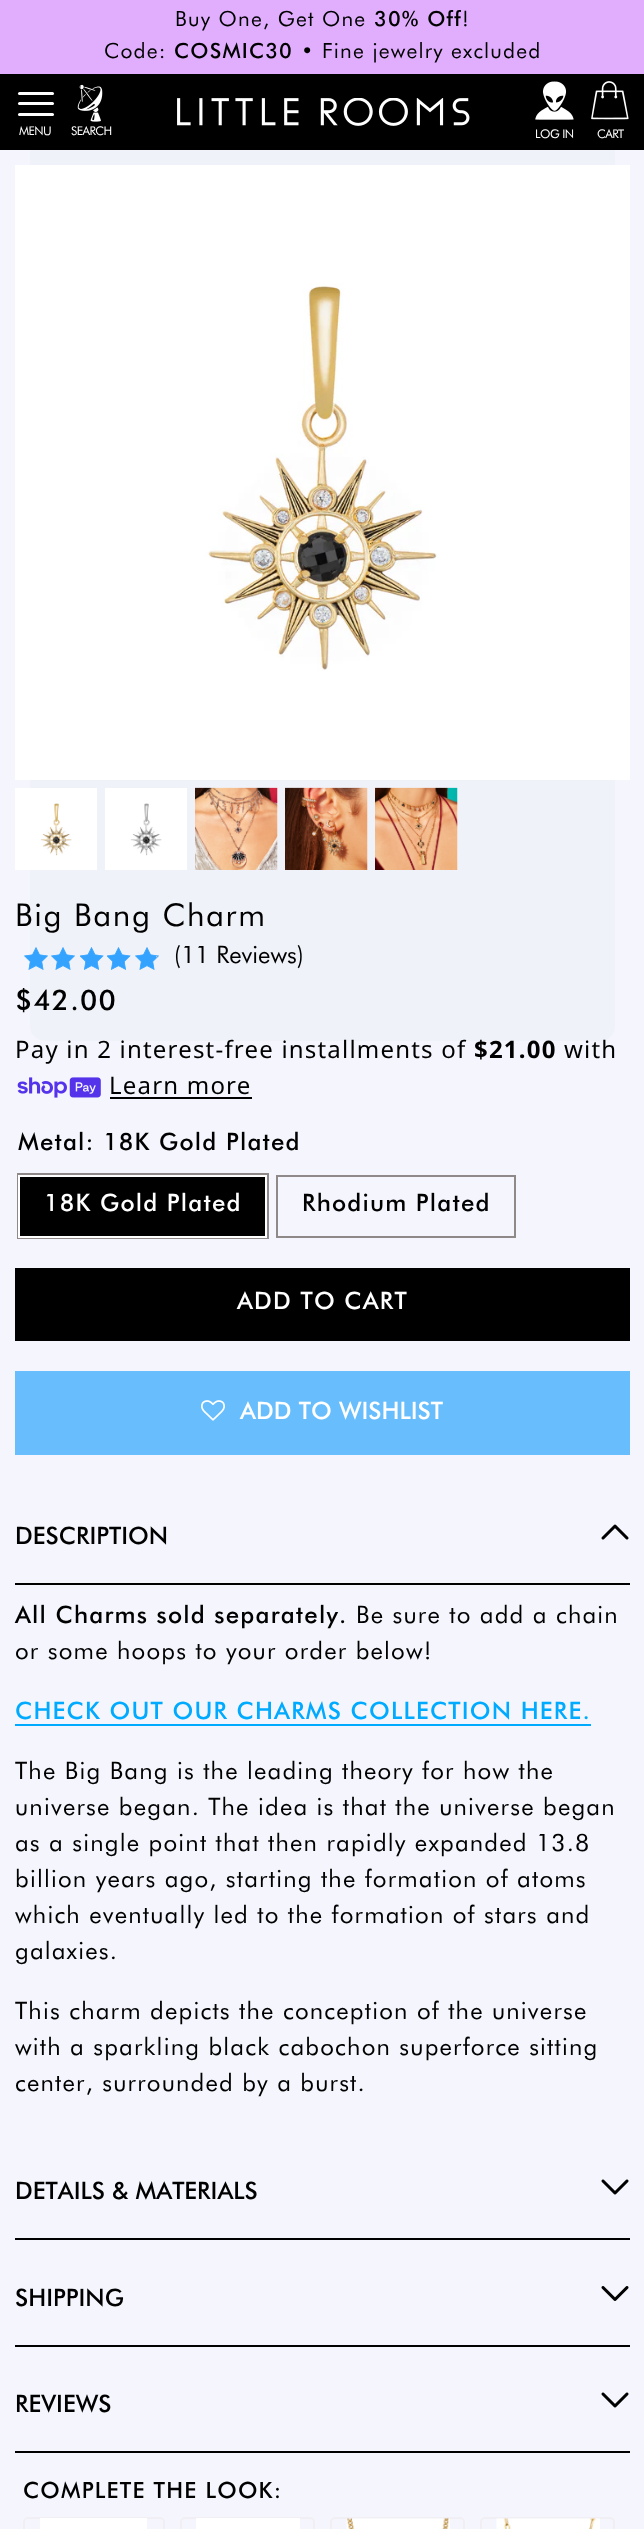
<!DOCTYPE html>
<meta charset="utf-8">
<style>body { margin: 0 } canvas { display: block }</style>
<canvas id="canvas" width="644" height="2529"></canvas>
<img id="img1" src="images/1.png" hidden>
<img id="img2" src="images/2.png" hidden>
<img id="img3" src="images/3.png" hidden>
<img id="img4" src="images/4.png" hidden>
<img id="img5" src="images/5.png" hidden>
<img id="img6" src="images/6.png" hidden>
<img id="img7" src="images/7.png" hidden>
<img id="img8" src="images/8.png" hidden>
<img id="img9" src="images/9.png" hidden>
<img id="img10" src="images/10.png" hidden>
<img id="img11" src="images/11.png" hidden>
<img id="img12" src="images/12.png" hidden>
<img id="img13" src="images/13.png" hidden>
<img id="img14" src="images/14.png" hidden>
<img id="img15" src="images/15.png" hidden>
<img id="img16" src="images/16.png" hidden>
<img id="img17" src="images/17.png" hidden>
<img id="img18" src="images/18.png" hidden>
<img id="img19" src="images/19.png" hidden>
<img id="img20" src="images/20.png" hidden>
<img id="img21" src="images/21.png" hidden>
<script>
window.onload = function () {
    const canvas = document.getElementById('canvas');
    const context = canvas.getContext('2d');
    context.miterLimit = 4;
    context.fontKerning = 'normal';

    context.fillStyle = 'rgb(245, 246, 253)';
    context.fillRect(0, 0, 644, 2529);
    context.fillStyle = 'rgb(240, 242, 249)';
    context.beginPath();
    context.roundRect(30, 30, 585, 1011, 15);
    context.fill();
    context.fillStyle = 'rgb(0, 0, 0)';
    context.fillRect(0, 74, 644, 76);
    context.fillStyle = 'rgb(225, 174, 254)';
    context.fillRect(0, 0, 644, 74);
    context.drawImage(document.getElementById('img1'), 177, 98, 293, 28);
    context.fillStyle = 'rgb(255, 255, 255)';
    context.beginPath();
    context.roundRect(18, 102, 36, 3, 1.5);
    context.fill();
    context.beginPath();
    context.roundRect(18, 92, 36, 3, 1.5);
    context.fill();
    context.beginPath();
    context.roundRect(18, 113, 36, 3, 1.5);
    context.fill();
    context.drawImage(document.getElementById('img2'), 77, 84, 26, 38);
    context.drawImage(document.getElementById('img3'), 535, 81, 39, 39);
    context.drawImage(document.getElementById('img4'), 591, 81, 38, 39);
    context.drawImage(document.getElementById('img5'), 15, 165, 615, 615);
    context.drawImage(document.getElementById('img6'), 15, 788, 82, 82);
    context.drawImage(document.getElementById('img7'), 105, 788, 82, 82);
    context.drawImage(document.getElementById('img8'), 195, 787, 83, 83);
    context.drawImage(document.getElementById('img9'), 285, 787, 83, 83);
    context.drawImage(document.getElementById('img10'), 375, 787, 83, 83);
    context.drawImage(document.getElementById('img11'), 24, 947, 24, 23);
    context.drawImage(document.getElementById('img12'), 51, 947, 24, 23);
    context.drawImage(document.getElementById('img13'), 80, 947, 24, 23);
    context.drawImage(document.getElementById('img13'), 107, 947, 24, 23);
    context.drawImage(document.getElementById('img14'), 135, 947, 24, 23);
    context.drawImage(document.getElementById('img15'), 17, 1077, 84, 21);
    context.fillStyle = 'rgb(0, 0, 0)';
    context.fillRect(110, 1097, 142, 2);
    context.strokeStyle = 'rgb(144, 137, 137)';
    context.lineWidth = 2;
    context.strokeRect(18, 1174, 250, 64);
    context.beginPath();
    context.rect(19, 1176, 247, 61);
    context.fill();
    context.strokeStyle = 'rgb(255, 255, 255)';
    context.stroke();
    context.strokeStyle = 'rgb(144, 137, 137)';
    context.strokeRect(277, 1176, 238, 61);
    context.fillRect(15, 1268, 615, 73);
    context.fillStyle = 'rgb(104, 190, 252)';
    context.fillRect(15, 1371, 615, 84);
    context.drawImage(document.getElementById('img16'), 201, 1400, 24, 21);
    context.fillStyle = 'rgb(0, 0, 0)';
    context.fillRect(15, 1583, 615, 2);
    context.drawImage(document.getElementById('img17'), 601, 1524, 28, 16);
    context.fillStyle = 'rgb(0, 170, 255)';
    context.fillRect(15, 1724, 576, 2);
    context.fillStyle = 'rgb(0, 0, 0)';
    context.fillRect(15, 2238, 615, 2);
    context.drawImage(document.getElementById('img18'), 601, 2179, 28, 16);
    context.fillRect(15, 2345, 615, 2);
    context.drawImage(document.getElementById('img19'), 601, 2286, 28, 15);
    context.fillRect(15, 2451, 615, 2);
    context.drawImage(document.getElementById('img18'), 601, 2392, 28, 16);
    context.beginPath();
    context.roundRect(24, 2518, 140, 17, 4);
    context.strokeStyle = 'rgb(241, 239, 244)';
    context.stroke();
    context.fillStyle = 'rgb(255, 255, 255)';
    context.fillRect(40, 2518, 107, 11);
    context.beginPath();
    context.roundRect(181, 2518, 133, 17, 4);
    context.stroke();
    context.fillRect(196, 2518, 104, 11);
    context.beginPath();
    context.roundRect(331, 2518, 133, 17, 4);
    context.stroke();
    context.drawImage(document.getElementById('img20'), 346, 2518, 104, 11);
    context.beginPath();
    context.roundRect(481, 2518, 133, 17, 4);
    context.stroke();
    context.drawImage(document.getElementById('img21'), 496, 2518, 104, 11);
    context.letterSpacing = '1.2px';
    context.font = '21px Futura';
    context.fillStyle = 'rgb(0, 0, 0)';
    context.fillText('Buy One, Get One', 175, 26);
    context.font = '500 21px Futura';
    context.fillText('30% Off', 374, 26);
    context.font = '21px Futura';
    context.fillText('!', 462, 26);
    context.fillText('Code:', 104, 58);
    context.font = '500 21px Futura';
    context.fillText('COSMIC30', 174, 58);
    context.font = '21px Futura';
    context.fillText('• Fine jewelry excluded', 301, 58);
    context.letterSpacing = '-0.5px';
    context.font = '12px Futura';
    context.fillStyle = 'rgb(255, 255, 255)';
    context.fillText('MENU', 19, 135);
    context.fillText('SEARCH', 71, 135);
    context.fillText('LOG IN', 535, 138);
    context.fillText('CART', 597, 138);
    context.letterSpacing = '1.6px';
    context.font = '31.5px Futura';
    context.fillStyle = 'rgb(0, 0, 0)';
    context.fillText('Big Bang Charm', 15, 926);
    context.letterSpacing = '0px';
    context.font = '24px Futura';
    context.fillText('(11 Reviews)', 174, 963);
    context.letterSpacing = '1.2px';
    context.font = '500 28.5px Futura';
    context.fillText('$42.00', 15, 1010);
    context.font = '24px Noto Sans';
    context.fillText('Pay in 2 interest-free installments of', 15, 1058);
    context.font = 'bold 24px Noto Sans';
    context.fillText('$21.00', 474, 1058);
    context.font = '24px Noto Sans';
    context.fillText('with', 564, 1058);
    context.fillText('Learn more', 109, 1094);
    context.font = '500 24px Futura';
    context.fillText('Metal: 18K Gold Plated', 18, 1150);
    context.fillStyle = 'rgb(255, 255, 255)';
    context.fillText('18K Gold Plated', 44, 1211);
    context.fillStyle = 'rgb(0, 0, 0)';
    context.fillText('Rhodium Plated', 302, 1211);
    context.fillStyle = 'rgb(255, 255, 255)';
    context.fillText('ADD TO CART', 237, 1309);
    context.letterSpacing = '0px';
    context.fillText('ADD TO WISHLIST', 240, 1419);
    context.fillStyle = 'rgb(0, 0, 0)';
    context.fillText('DESCRIPTION', 15, 1544);
    context.letterSpacing = '1.2px';
    context.fillText('All Charms sold separately.', 15, 1623);
    context.font = '24px Futura';
    context.fillText('Be sure to add a chain', 356, 1623);
    context.fillText('or some hoops to your order below!', 15, 1659);
    context.font = '500 24px Futura';
    context.fillStyle = 'rgb(0, 170, 255)';
    context.fillText('CHECK OUT OUR CHARMS COLLECTION HERE.', 15, 1719);
    context.font = '24px Futura';
    context.fillStyle = 'rgb(0, 0, 0)';
    context.fillText('The Big Bang is the leading theory for how the', 15, 1779);
    context.fillText('universe began. The idea is that the universe began', 15, 1815);
    context.fillText('as a single point that then rapidly expanded 13.8', 15, 1851);
    context.fillText('billion years ago, starting the formation of atoms', 15, 1887);
    context.fillText('which eventually led to the formation of stars and', 15, 1923);
    context.fillText('galaxies.', 15, 1959);
    context.fillText('This charm depicts the conception of the universe', 15, 2019);
    context.fillText('with a sparkling black cabochon superforce sitting', 15, 2055);
    context.fillText('center, surrounded by a burst.', 15, 2091);
    context.letterSpacing = '0px';
    context.font = '500 24px Futura';
    context.fillText('DETAILS & MATERIALS', 15, 2199);
    context.fillText('SHIPPING', 15, 2306);
    context.fillText('REVIEWS', 15, 2412);
    context.letterSpacing = '1.2px';
    context.font = '500 22.5px Futura';
    context.fillText('COMPLETE THE LOOK:', 23, 2498);
};
</script>
